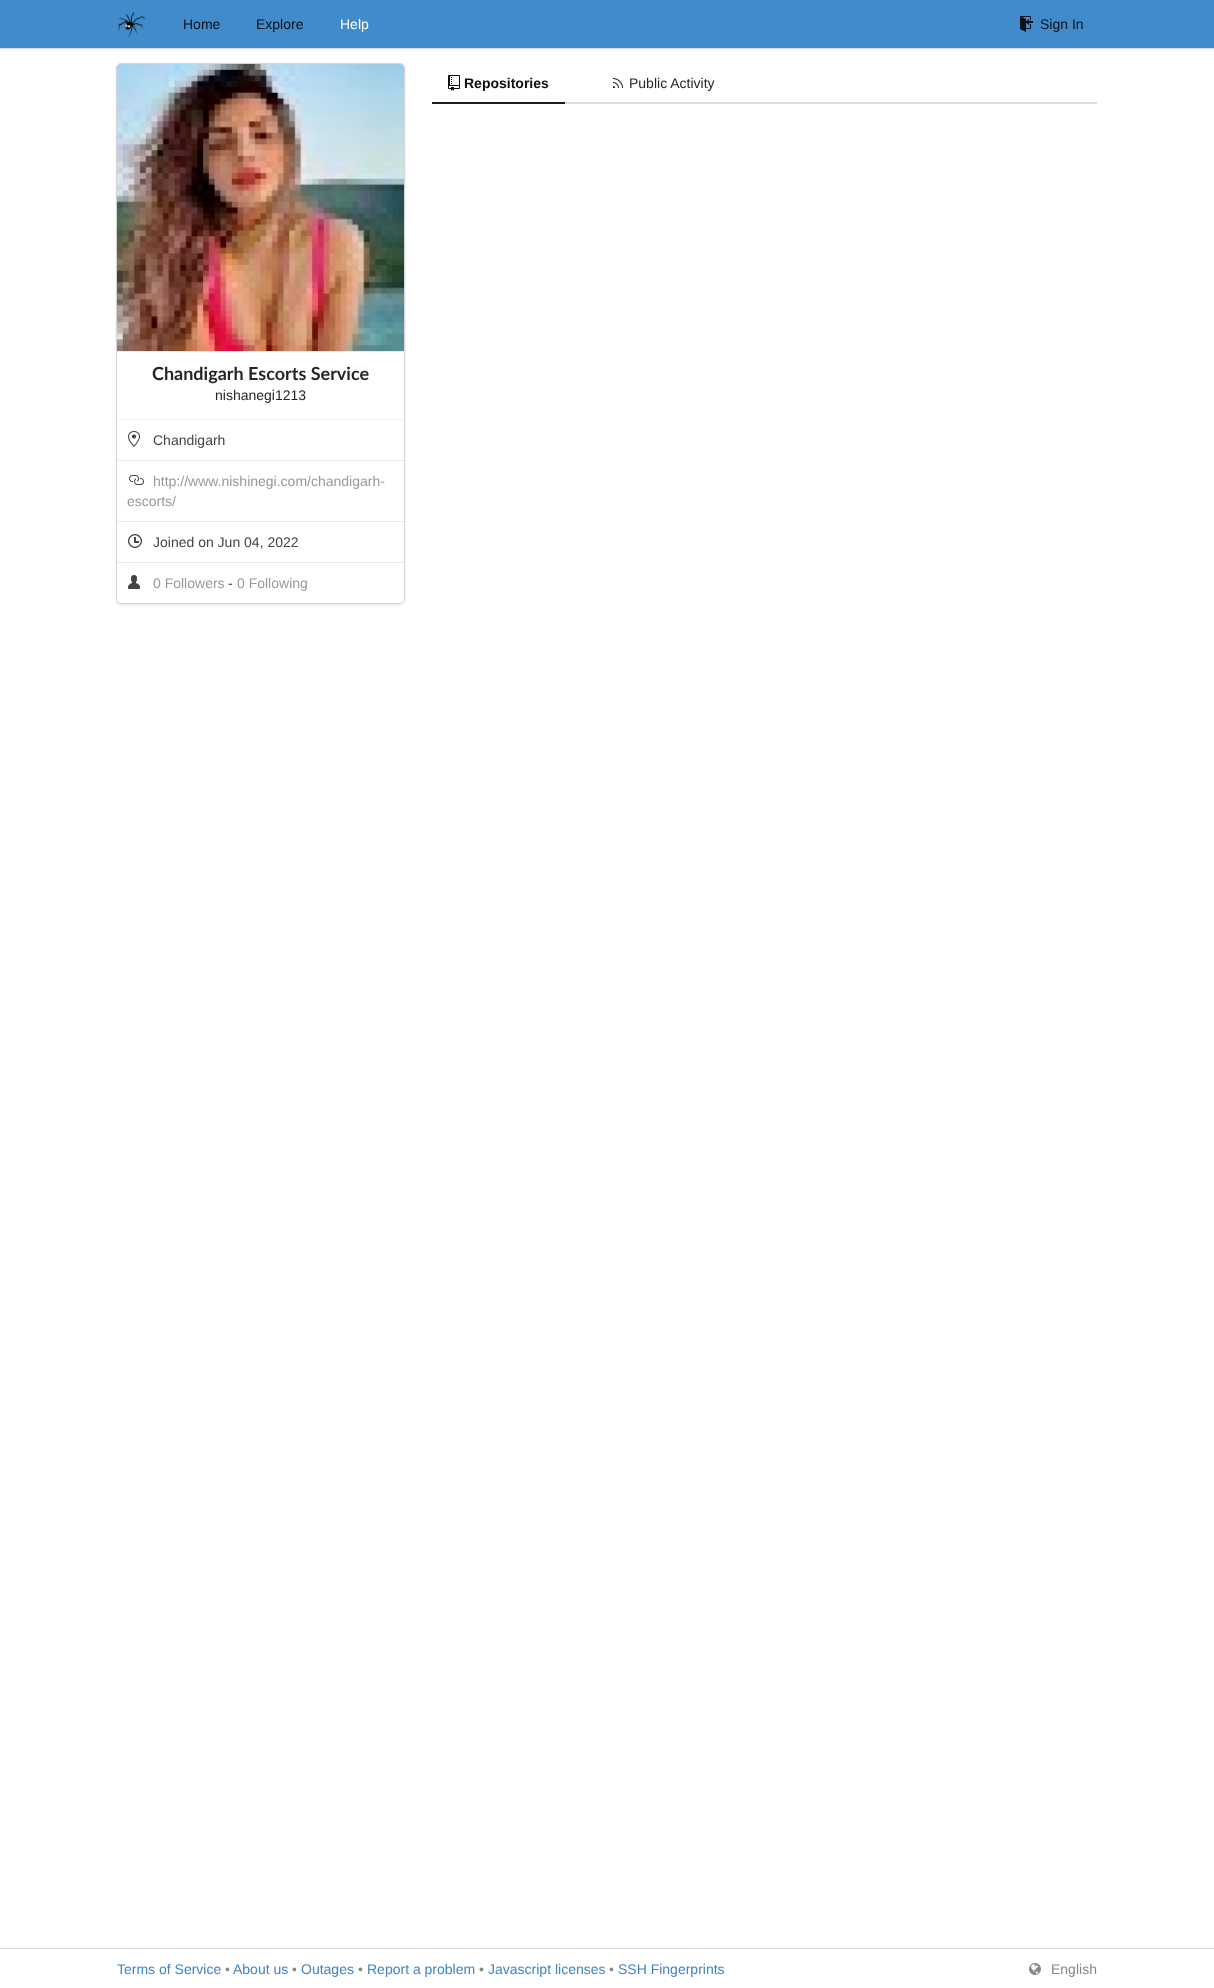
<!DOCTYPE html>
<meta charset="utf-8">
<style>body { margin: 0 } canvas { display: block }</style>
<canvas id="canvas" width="1214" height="1988"></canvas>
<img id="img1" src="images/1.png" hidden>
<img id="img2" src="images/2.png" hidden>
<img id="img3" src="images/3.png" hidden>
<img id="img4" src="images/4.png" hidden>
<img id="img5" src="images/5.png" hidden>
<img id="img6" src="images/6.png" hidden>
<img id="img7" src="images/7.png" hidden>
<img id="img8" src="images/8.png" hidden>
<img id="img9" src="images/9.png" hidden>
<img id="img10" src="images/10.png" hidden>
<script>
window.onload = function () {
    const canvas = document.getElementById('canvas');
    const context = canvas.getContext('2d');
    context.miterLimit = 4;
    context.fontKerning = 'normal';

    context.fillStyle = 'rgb(255, 255, 255)';
    context.fillRect(0, 0, 1214, 1988);
    context.fillStyle = 'rgba(0, 0, 0, 0.04)';
    context.filter = 'blur(1.5px)';
    context.beginPath();
    context.rect(0, -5, 1214, 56);
    context.fill();
    context.filter = 'none';
    context.fillStyle = 'rgb(66, 139, 202)';
    context.fillRect(0, 0, 1214, 48);
    context.fillStyle = 'rgb(221, 221, 221)';
    context.fillRect(0, 48, 1214, 1);
    context.drawImage(document.getElementById('img1'), 118, 11, 28, 27);
    context.drawImage(document.getElementById('img2'), 1020, 16, 13, 16);
    context.fillStyle = 'rgb(222, 222, 222)';
    context.fillRect(565, 102, 532, 2);
    context.fillStyle = 'rgb(27, 28, 29)';
    context.fillRect(432, 102, 133, 2);
    context.drawImage(document.getElementById('img3'), 448, 75, 12, 16);
    context.drawImage(document.getElementById('img4'), 613, 78, 10, 10);
    context.beginPath();
    context.roundRect(116.5, 63.5, 288, 540, 4.5);
    context.strokeStyle = 'rgb(212, 212, 213)';
    context.stroke();
    context.fillStyle = 'rgb(212, 212, 213)';
    context.filter = 'blur(1.5px)';
    context.beginPath();
    context.roundRect(117, 65, 287, 539, 4);
    context.fill();
    context.filter = 'none';
    context.fillStyle = 'rgb(255, 255, 255)';
    context.beginPath();
    context.roundRect(117, 64, 287, 539, 4);
    context.fill();
    context.drawImage(document.getElementById('img5'), 117, 64, 287, 287);
    context.fillStyle = 'rgb(233, 233, 233)';
    context.fillRect(117, 351, 287, 1);
    context.fillStyle = 'rgb(242, 242, 242)';
    context.fillRect(117, 419, 287, 1);
    context.fillStyle = 'rgb(234, 234, 234)';
    context.fillRect(117, 460, 287, 1);
    context.drawImage(document.getElementById('img6'), 128, 431, 12, 16);
    context.fillRect(117, 521, 287, 1);
    context.drawImage(document.getElementById('img7'), 129, 475, 15, 10);
    context.fillRect(117, 562, 287, 1);
    context.drawImage(document.getElementById('img8'), 128, 534, 14, 14);
    context.drawImage(document.getElementById('img9'), 128, 575, 12, 14);
    context.fillStyle = 'rgb(214, 214, 214)';
    context.fillRect(0, 1948, 1214, 1);
    context.drawImage(document.getElementById('img10'), 1029, 1963, 12, 12);
    context.font = '14px Liberation Sans';
    context.fillStyle = 'rgb(9, 18, 26)';
    context.fillText('Home', 183, 29);
    context.fillText('Explore', 256, 29);
    context.fillStyle = 'rgb(255, 255, 255)';
    context.fillText('Help', 340, 29);
    context.fillStyle = 'rgb(9, 18, 26)';
    context.fillText('Sign In', 1040, 29);
    context.font = 'bold 14px Liberation Sans';
    context.fillStyle = 'rgb(13, 13, 13)';
    context.fillText('Repositories', 464, 88);
    context.font = '14px Liberation Sans';
    context.fillStyle = 'rgb(38, 38, 38)';
    context.fillText('Public Activity', 629, 88);
    context.font = 'bold 18px Lato';
    context.fillText('Chandigarh Escorts Service', 152, 380);
    context.font = '14px Liberation Sans';
    context.fillText('nishanegi1213', 215, 400);
    context.fillStyle = 'rgb(68, 68, 68)';
    context.fillText('Chandigarh', 153, 445);
    context.fillStyle = 'rgb(153, 153, 153)';
    context.fillText('http://www.nishinegi.com/chandigarh-', 153, 486);
    context.fillText('escorts/', 127, 506);
    context.fillStyle = 'rgb(68, 68, 68)';
    context.fillText('Joined on Jun 04, 2022', 153, 547);
    context.fillStyle = 'rgb(153, 153, 153)';
    context.fillText('0 Followers', 153, 588);
    context.fillStyle = 'rgb(68, 68, 68)';
    context.fillText('-', 228, 588);
    context.fillStyle = 'rgb(153, 153, 153)';
    context.fillText('0 Following', 237, 588);
    context.fillStyle = 'rgb(65, 131, 196)';
    context.fillText('Terms of Service', 117, 1974);
    context.fillStyle = 'rgb(136, 136, 136)';
    context.fillText('•', 225, 1974);
    context.fillStyle = 'rgb(65, 131, 196)';
    context.fillText('About us', 233, 1974);
    context.fillStyle = 'rgb(136, 136, 136)';
    context.fillText('•', 292, 1974);
    context.fillStyle = 'rgb(65, 131, 196)';
    context.fillText('Outages', 301, 1974);
    context.fillStyle = 'rgb(136, 136, 136)';
    context.fillText('•', 358, 1974);
    context.fillStyle = 'rgb(65, 131, 196)';
    context.fillText('Report a problem', 367, 1974);
    context.fillStyle = 'rgb(136, 136, 136)';
    context.fillText('•', 479, 1974);
    context.fillStyle = 'rgb(65, 131, 196)';
    context.fillText('Javascript licenses', 488, 1974);
    context.fillStyle = 'rgb(136, 136, 136)';
    context.fillText('•', 609, 1974);
    context.fillStyle = 'rgb(65, 131, 196)';
    context.fillText('SSH Fingerprints', 618, 1974);
    context.fillStyle = 'rgb(136, 136, 136)';
    context.fillText('English', 1051, 1974);
};
</script>
